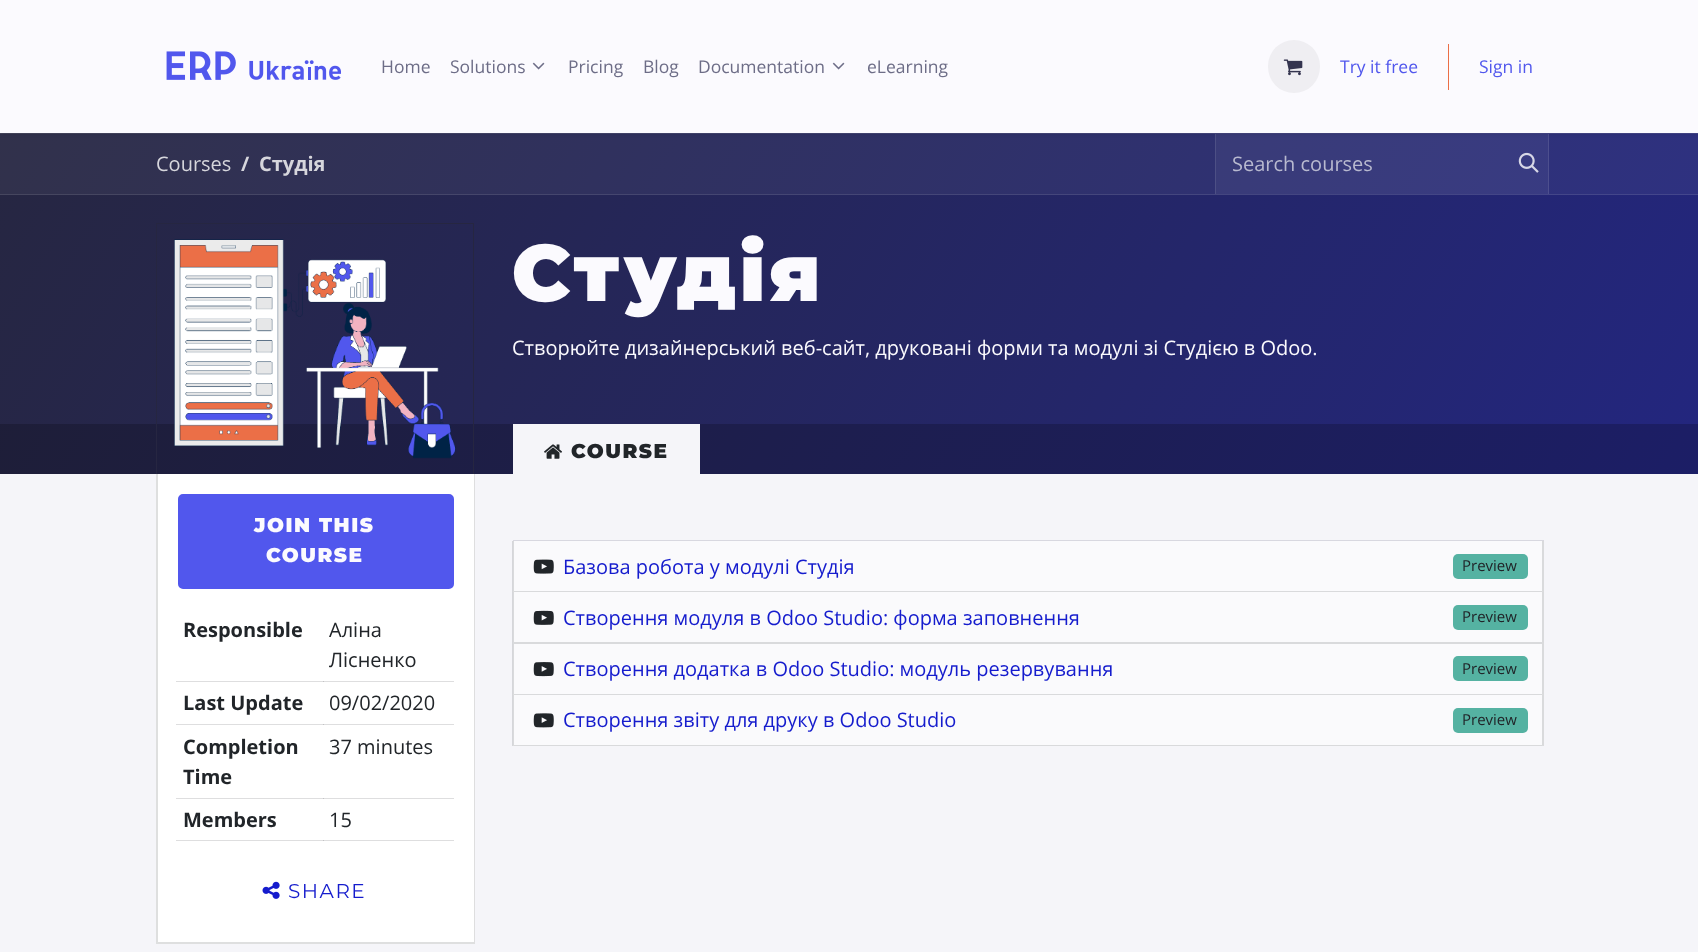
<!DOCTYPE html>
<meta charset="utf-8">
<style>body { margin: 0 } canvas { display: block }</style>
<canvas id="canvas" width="1698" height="952"></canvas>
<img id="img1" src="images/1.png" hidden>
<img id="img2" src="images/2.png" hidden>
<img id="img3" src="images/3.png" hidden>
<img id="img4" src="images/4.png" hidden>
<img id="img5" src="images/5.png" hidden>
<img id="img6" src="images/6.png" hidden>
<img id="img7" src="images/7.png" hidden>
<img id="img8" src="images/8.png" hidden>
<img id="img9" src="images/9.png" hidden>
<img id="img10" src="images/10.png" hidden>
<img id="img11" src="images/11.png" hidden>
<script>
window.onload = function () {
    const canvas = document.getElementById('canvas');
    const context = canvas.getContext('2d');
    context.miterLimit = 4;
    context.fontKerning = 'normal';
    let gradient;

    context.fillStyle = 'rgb(245, 245, 249)';
    context.fillRect(0, 0, 1698, 952);
    gradient = context.createLinearGradient(138, -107, 1560, 714);
    gradient.addColorStop(0, 'rgb(49, 49, 75)');
    gradient.addColorStop(1, 'rgb(46, 49, 133)');
    context.fillStyle = gradient;
    context.fillRect(0, 134, 1698, 60);
    gradient = context.createLinearGradient(138, -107, 1560, 714);
    gradient.addColorStop(0, 'rgb(59, 59, 84)');
    gradient.addColorStop(1, 'rgb(56, 59, 139)');
    context.fillStyle = gradient;
    context.fillRect(1216, 134, 332, 60);
    gradient = context.createLinearGradient(138, -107, 1560, 714);
    gradient.addColorStop(0, 'rgb(70, 70, 93)');
    gradient.addColorStop(1, 'rgb(67, 70, 145)');
    context.fillStyle = gradient;
    context.fillRect(0, 133, 1698, 1);
    context.fillStyle = 'rgb(77, 79, 142)';
    context.fillRect(1548, 134, 1, 60);
    context.fillStyle = 'rgb(77, 79, 133)';
    context.fillRect(1215, 134, 1, 60);
    context.fillStyle = 'rgba(0, 0, 0, 0.1)';
    context.filter = 'blur(2px)';
    context.beginPath();
    context.rect(0, 1, 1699, 133);
    context.fill();
    context.filter = 'none';
    context.fillStyle = 'rgb(251, 250, 254)';
    context.fillRect(0, 0, 1698, 133);
    context.drawImage(document.getElementById('img1'), 166, 51, 175, 29);
    context.drawImage(document.getElementById('img2'), 532, 62, 13, 8);
    context.drawImage(document.getElementById('img2'), 832, 62, 13, 8);
    context.fillStyle = 'rgb(239, 238, 242)';
    context.beginPath();
    context.roundRect(1268, 40, 52, 53, 26);
    context.fill();
    context.drawImage(document.getElementById('img3'), 1283, 59, 20, 17);
    context.fillStyle = 'rgb(235, 111, 71)';
    context.fillRect(1448, 44, 1, 46);
    gradient = context.createLinearGradient(138, -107, 1560, 714);
    gradient.addColorStop(0, 'rgb(38, 38, 65)');
    gradient.addColorStop(1, 'rgb(35, 38, 127)');
    context.fillStyle = gradient;
    context.fillRect(0, 195, 1698, 229);
    gradient = context.createLinearGradient(138, -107, 1560, 714);
    gradient.addColorStop(0, 'rgb(70, 70, 93)');
    gradient.addColorStop(1, 'rgb(67, 70, 145)');
    context.fillStyle = gradient;
    context.fillRect(0, 194, 1698, 1);
    gradient = context.createLinearGradient(138, -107, 1560, 714);
    gradient.addColorStop(0, 'rgb(30, 30, 52)');
    gradient.addColorStop(1, 'rgb(28, 30, 102)');
    context.fillStyle = gradient;
    context.fillRect(0, 424, 1698, 50);
    context.drawImage(document.getElementById('img4'), 1518, 152, 21, 21);
    context.fillStyle = 'rgb(38, 38, 65)';
    context.fillRect(156, 223, 318, 1);
    context.fillRect(473, 223, 1, 251);
    context.fillRect(156, 223, 1, 251);
    context.drawImage(document.getElementById('img5'), 174, 239, 282, 220);
    context.fillStyle = 'rgb(255, 255, 255)';
    context.fillRect(156, 474, 319, 470);
    context.fillStyle = 'rgb(222, 222, 223)';
    context.fillRect(176, 681, 278, 1);
    context.fillRect(176, 724, 278, 1);
    context.fillRect(176, 798, 278, 1);
    context.fillRect(176, 840, 278, 1);
    context.beginPath();
    context.moveTo(475, 474);
    context.lineTo(475, 944);
    context.lineTo(474, 942);
    context.lineTo(474, 474);
    context.closePath();
    context.fill();
    context.fillStyle = 'rgba(33, 37, 41, 0.15)';
    context.beginPath();
    context.moveTo(475, 944);
    context.lineTo(156, 944);
    context.lineTo(158, 942);
    context.lineTo(474, 942);
    context.closePath();
    context.fill();
    context.beginPath();
    context.moveTo(156, 944);
    context.lineTo(156, 474);
    context.lineTo(158, 474);
    context.lineTo(158, 942);
    context.closePath();
    context.fill();
    context.fillStyle = 'rgb(81, 87, 237)';
    context.beginPath();
    context.roundRect(180, 496, 272, 91, 3);
    context.fill();
    context.strokeStyle = 'rgb(81, 87, 237)';
    context.lineWidth = 4;
    context.stroke();
    context.fillStyle = 'rgb(194, 194, 196)';
    context.fillRect(323, 681, 1, 1);
    context.fillRect(323, 724, 1, 1);
    context.fillRect(323, 798, 1, 1);
    context.fillRect(323, 840, 1, 1);
    context.drawImage(document.getElementById('img6'), 262, 881, 18, 18);
    context.fillStyle = 'rgb(245, 245, 249)';
    context.fillRect(514, 424, 185, 50);
    context.fillRect(699, 424, 1, 57);
    context.fillRect(513, 424, 1, 57);
    context.drawImage(document.getElementById('img7'), 544, 444, 18, 15);
    context.fillStyle = 'rgb(216, 216, 224)';
    context.fillRect(513, 540, 1031, 1);
    context.fillStyle = 'rgb(250, 250, 252)';
    context.fillRect(513, 541, 1031, 205);
    context.fillStyle = 'rgb(217, 218, 220)';
    context.beginPath();
    context.moveTo(1544, 541);
    context.lineTo(1544, 592);
    context.lineTo(1542, 591);
    context.lineTo(1542, 541);
    context.closePath();
    context.fill();
    context.fillStyle = 'rgba(33, 37, 41, 0.15)';
    context.beginPath();
    context.moveTo(1544, 592);
    context.lineTo(512, 592);
    context.lineTo(514, 591);
    context.lineTo(1542, 591);
    context.closePath();
    context.fill();
    context.beginPath();
    context.moveTo(512, 592);
    context.lineTo(512, 541);
    context.lineTo(514, 541);
    context.lineTo(514, 591);
    context.closePath();
    context.fill();
    context.drawImage(document.getElementById('img8'), 533, 559, 21, 15);
    context.fillStyle = 'rgb(85, 178, 162)';
    context.beginPath();
    context.roundRect(1453, 554, 75, 25, 5);
    context.fill();
    context.fillStyle = 'rgb(217, 218, 220)';
    context.beginPath();
    context.moveTo(1544, 592);
    context.lineTo(1544, 644);
    context.lineTo(1542, 642);
    context.lineTo(1542, 592);
    context.closePath();
    context.fill();
    context.fillStyle = 'rgba(33, 37, 41, 0.15)';
    context.beginPath();
    context.moveTo(1544, 644);
    context.lineTo(512, 644);
    context.lineTo(514, 642);
    context.lineTo(1542, 642);
    context.closePath();
    context.fill();
    context.beginPath();
    context.moveTo(512, 644);
    context.lineTo(512, 592);
    context.lineTo(514, 592);
    context.lineTo(514, 642);
    context.closePath();
    context.fill();
    context.drawImage(document.getElementById('img9'), 533, 610, 21, 15);
    context.fillStyle = 'rgb(85, 178, 162)';
    context.beginPath();
    context.roundRect(1453, 605, 75, 25, 5);
    context.fill();
    context.fillStyle = 'rgb(217, 218, 220)';
    context.beginPath();
    context.moveTo(1544, 644);
    context.lineTo(1544, 695);
    context.lineTo(1542, 694);
    context.lineTo(1542, 644);
    context.closePath();
    context.fill();
    context.fillStyle = 'rgba(33, 37, 41, 0.15)';
    context.beginPath();
    context.moveTo(1544, 695);
    context.lineTo(512, 695);
    context.lineTo(514, 694);
    context.lineTo(1542, 694);
    context.closePath();
    context.fill();
    context.beginPath();
    context.moveTo(512, 695);
    context.lineTo(512, 644);
    context.lineTo(514, 644);
    context.lineTo(514, 694);
    context.closePath();
    context.fill();
    context.drawImage(document.getElementById('img10'), 533, 662, 21, 15);
    context.fillStyle = 'rgb(85, 178, 162)';
    context.beginPath();
    context.roundRect(1453, 656, 75, 25, 5);
    context.fill();
    context.fillStyle = 'rgb(217, 218, 220)';
    context.beginPath();
    context.moveTo(1544, 695);
    context.lineTo(1544, 746);
    context.lineTo(1542, 745);
    context.lineTo(1542, 695);
    context.closePath();
    context.fill();
    context.fillStyle = 'rgba(33, 37, 41, 0.15)';
    context.beginPath();
    context.moveTo(1544, 746);
    context.lineTo(512, 746);
    context.lineTo(514, 745);
    context.lineTo(1542, 745);
    context.closePath();
    context.fill();
    context.beginPath();
    context.moveTo(512, 746);
    context.lineTo(512, 695);
    context.lineTo(514, 695);
    context.lineTo(514, 745);
    context.closePath();
    context.fill();
    context.drawImage(document.getElementById('img11'), 533, 713, 21, 15);
    context.fillStyle = 'rgb(85, 178, 162)';
    context.beginPath();
    context.roundRect(1453, 708, 75, 25, 5);
    context.fill();
    context.font = '17.5px Open Sans';
    context.fillStyle = 'rgb(109, 109, 135)';
    context.fillText('Home', 381, 73);
    context.fillText('Solutions', 450, 73);
    context.fillText('Pricing', 568, 73);
    context.fillText('Blog', 643, 73);
    context.fillText('Documentation', 698, 73);
    context.fillText('eLearning', 867, 73);
    context.fillStyle = 'rgb(81, 87, 237)';
    context.fillText('Try it free', 1340, 73);
    context.fillText('Sign in', 1479, 73);
    context.font = '20px Open Sans';
    context.fillStyle = 'rgb(214, 214, 220)';
    context.fillText('Courses', 156, 171);
    context.font = 'bold 20px Open Sans';
    context.fillText('/', 241, 171);
    context.fillText('Студія', 259, 171);
    context.font = '20px Open Sans';
    context.fillStyle = 'rgb(184, 185, 207)';
    context.fillText('Search courses', 1232, 171);
    context.letterSpacing = '3.25px';
    context.font = '900 80px Montserrat';
    context.fillStyle = 'rgb(251, 250, 254)';
    context.fillText('Студія', 512, 301);
    context.letterSpacing = '0px';
    context.font = '20px Open Sans';
    context.fillText('Створюйте дизайнерський веб-сайт, друковані форми та модулі зі Студією в Odoo.', 512, 355);
    context.letterSpacing = '1.5px';
    context.font = '900 20px Montserrat';
    context.fillText('JOIN THIS', 254, 532);
    context.fillText('COURSE', 266, 562);
    context.letterSpacing = '0px';
    context.font = 'bold 20px Open Sans';
    context.fillStyle = 'rgb(33, 37, 41)';
    context.fillText('Responsible', 183, 637);
    context.font = '20px Open Sans';
    context.fillText('Аліна', 329, 637);
    context.fillText('Лісненко', 329, 667);
    context.font = 'bold 20px Open Sans';
    context.fillText('Last Update', 183, 710);
    context.font = '20px Open Sans';
    context.fillText('09/02/2020', 329, 710);
    context.font = 'bold 20px Open Sans';
    context.fillText('Completion', 183, 754);
    context.fillText('Time', 183, 784);
    context.font = '20px Open Sans';
    context.fillText('37 minutes', 329, 754);
    context.font = 'bold 20px Open Sans';
    context.fillText('Members', 183, 827);
    context.font = '20px Open Sans';
    context.fillText('15', 329, 827);
    context.letterSpacing = '1.5px';
    context.font = '20px Montserrat';
    context.fillStyle = 'rgb(21, 28, 205)';
    context.fillText('SHARE', 288, 898);
    context.font = '900 20px Montserrat';
    context.fillStyle = 'rgb(33, 37, 41)';
    context.fillText('COURSE', 571, 458);
    context.letterSpacing = '0px';
    context.font = '20px Open Sans';
    context.fillStyle = 'rgb(21, 28, 205)';
    context.fillText('Базова робота у модулі Студія', 563, 574);
    context.font = '15px Open Sans';
    context.fillStyle = 'rgb(33, 37, 41)';
    context.fillText('Preview', 1462, 571);
    context.font = '20px Open Sans';
    context.fillStyle = 'rgb(21, 28, 205)';
    context.fillText('Створення модуля в Odoo Studio: форма заповнення', 563, 625);
    context.font = '15px Open Sans';
    context.fillStyle = 'rgb(33, 37, 41)';
    context.fillText('Preview', 1462, 622);
    context.font = '20px Open Sans';
    context.fillStyle = 'rgb(21, 28, 205)';
    context.fillText('Створення додатка в Odoo Studio: модуль резервування', 563, 676);
    context.font = '15px Open Sans';
    context.fillStyle = 'rgb(33, 37, 41)';
    context.fillText('Preview', 1462, 674);
    context.font = '20px Open Sans';
    context.fillStyle = 'rgb(21, 28, 205)';
    context.fillText('Створення звіту для друку в Odoo Studio', 563, 727);
    context.font = '15px Open Sans';
    context.fillStyle = 'rgb(33, 37, 41)';
    context.fillText('Preview', 1462, 725);
};
</script>
